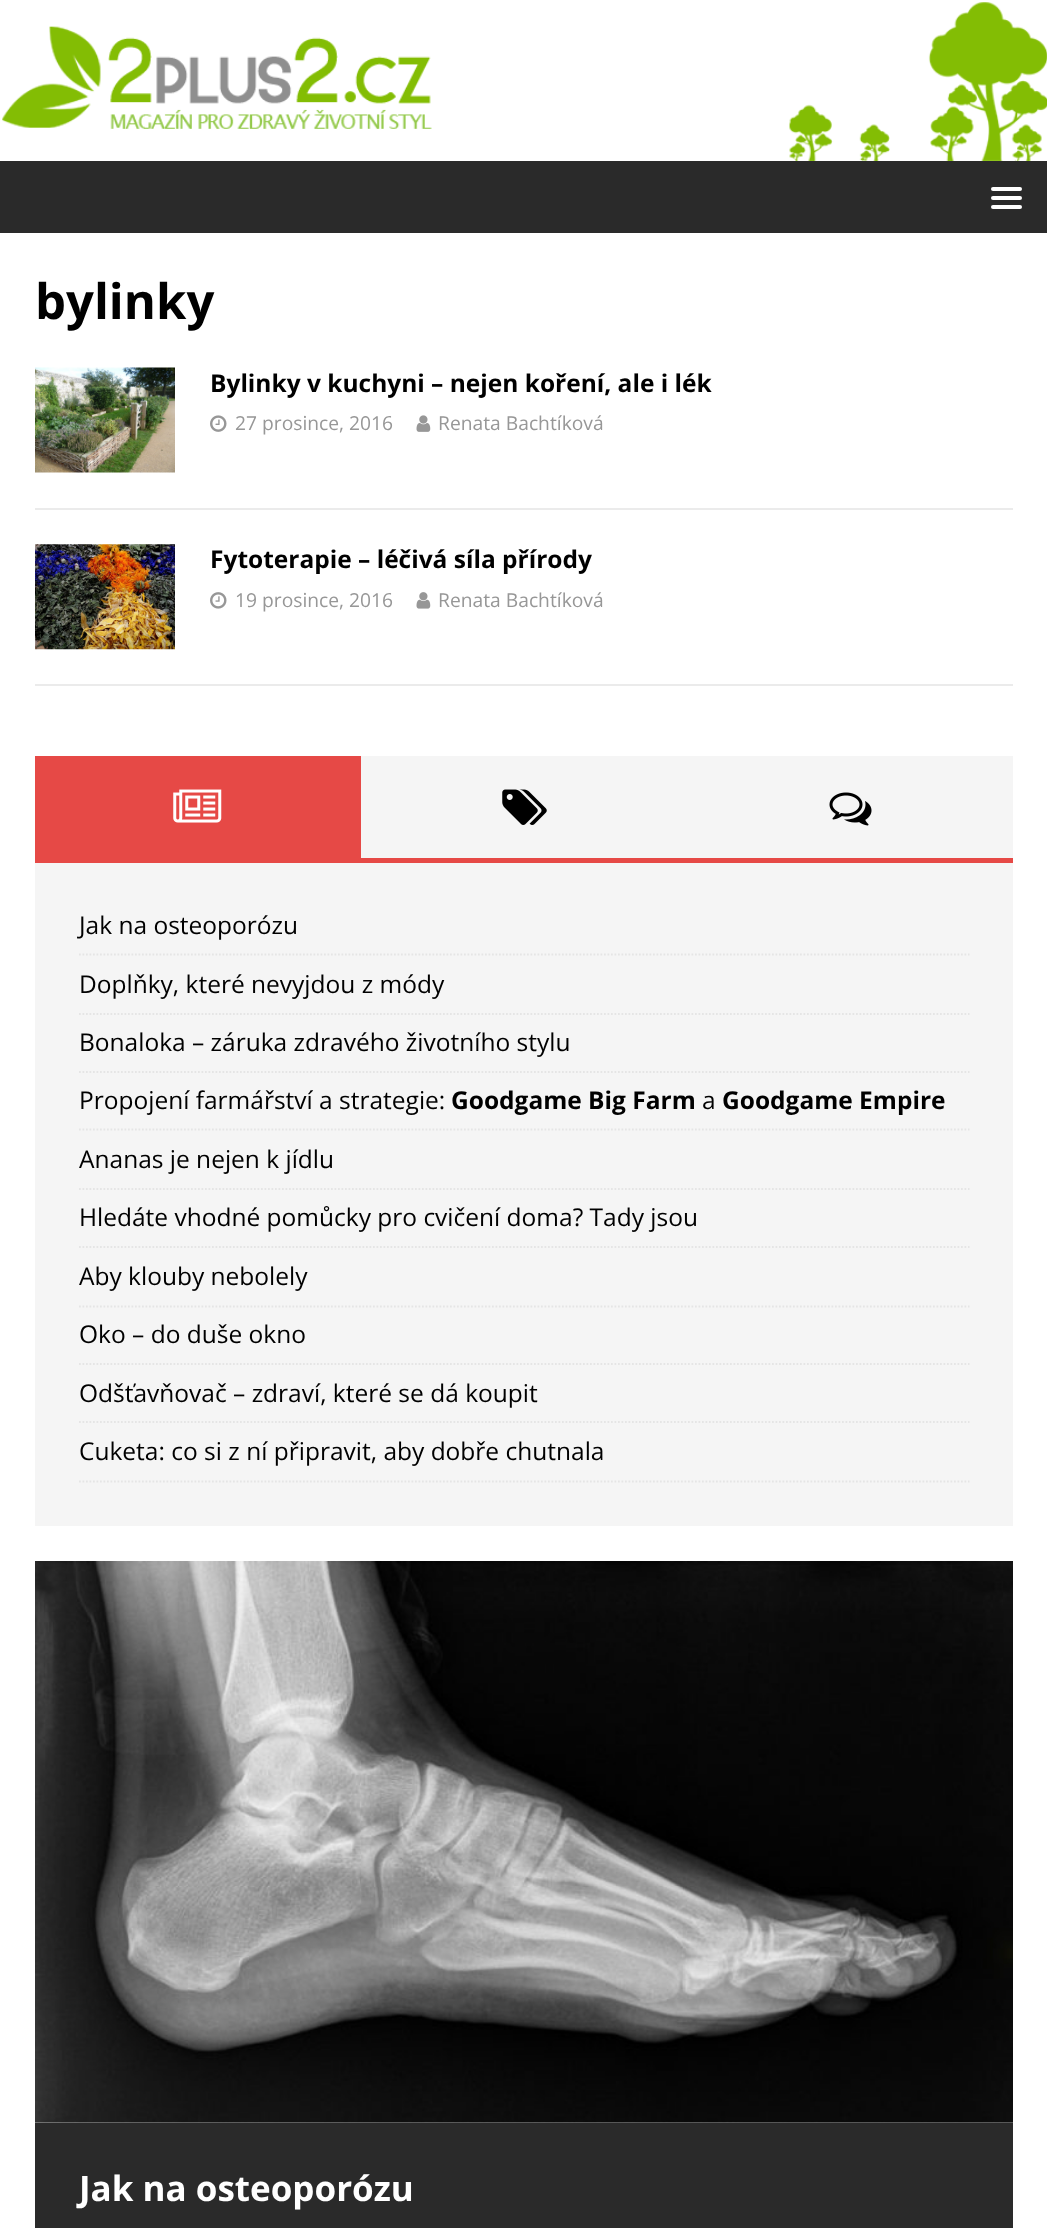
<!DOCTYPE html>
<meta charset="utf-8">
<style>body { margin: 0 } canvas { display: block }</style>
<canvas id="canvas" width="1047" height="2228"></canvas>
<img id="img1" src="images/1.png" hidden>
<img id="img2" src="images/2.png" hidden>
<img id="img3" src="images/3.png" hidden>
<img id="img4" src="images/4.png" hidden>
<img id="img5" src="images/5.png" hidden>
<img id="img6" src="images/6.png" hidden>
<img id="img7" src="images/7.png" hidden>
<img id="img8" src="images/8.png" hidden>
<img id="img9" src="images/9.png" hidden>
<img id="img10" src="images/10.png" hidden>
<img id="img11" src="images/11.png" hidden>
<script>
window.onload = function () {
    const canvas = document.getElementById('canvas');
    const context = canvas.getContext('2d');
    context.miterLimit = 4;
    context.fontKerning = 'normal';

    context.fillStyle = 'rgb(255, 255, 255)';
    context.fillRect(0, 0, 1047, 2228);
    context.drawImage(document.getElementById('img1'), 2, 2, 1045, 159);
    context.fillStyle = 'rgb(42, 42, 42)';
    context.fillRect(0, 161, 1047, 72);
    context.fillStyle = 'rgb(255, 255, 255)';
    context.beginPath();
    context.roundRect(991, 187, 31, 4, 2);
    context.fill();
    context.beginPath();
    context.roundRect(991, 196, 31, 4, 2);
    context.fill();
    context.beginPath();
    context.roundRect(991, 205, 31, 4, 2);
    context.fill();
    context.fillStyle = 'rgb(235, 235, 235)';
    context.fillRect(35, 508, 978, 2);
    context.drawImage(document.getElementById('img2'), 35, 367, 140, 106);
    context.drawImage(document.getElementById('img3'), 210, 415, 17, 17);
    context.drawImage(document.getElementById('img4'), 416, 415, 15, 17);
    context.fillRect(35, 684, 978, 2);
    context.drawImage(document.getElementById('img5'), 35, 544, 140, 106);
    context.drawImage(document.getElementById('img6'), 210, 592, 17, 17);
    context.drawImage(document.getElementById('img7'), 416, 592, 15, 17);
    context.fillStyle = 'rgb(230, 73, 70)';
    context.fillRect(35, 858, 978, 5);
    context.fillRect(35, 756, 326, 102);
    context.drawImage(document.getElementById('img8'), 173, 789, 49, 34);
    context.fillStyle = 'rgb(245, 245, 245)';
    context.fillRect(361, 756, 652, 102);
    context.drawImage(document.getElementById('img9'), 502, 789, 45, 36);
    context.drawImage(document.getElementById('img10'), 829, 792, 43, 34);
    context.fillRect(35, 863, 978, 663);
    context.beginPath();
    context.moveTo(79, 954.5);
    context.lineTo(969.5, 954.5);
    context.strokeStyle = 'rgb(229, 229, 229)';
    context.lineWidth = 1.8;
    context.setLineDash([1.75, 1.75]);
    context.stroke();
    context.beginPath();
    context.moveTo(79, 1014);
    context.lineTo(969.5, 1014);
    context.stroke();
    context.beginPath();
    context.moveTo(79, 1072);
    context.lineTo(969.5, 1072);
    context.stroke();
    context.beginPath();
    context.moveTo(79, 1129.5);
    context.lineTo(969.5, 1129.5);
    context.stroke();
    context.beginPath();
    context.moveTo(79, 1189);
    context.lineTo(969.5, 1189);
    context.stroke();
    context.beginPath();
    context.moveTo(79, 1247);
    context.lineTo(969.5, 1247);
    context.stroke();
    context.beginPath();
    context.moveTo(79, 1306.5);
    context.lineTo(969.5, 1306.5);
    context.stroke();
    context.beginPath();
    context.moveTo(79, 1364);
    context.lineTo(969.5, 1364);
    context.stroke();
    context.beginPath();
    context.moveTo(79, 1422);
    context.lineTo(969.5, 1422);
    context.stroke();
    context.beginPath();
    context.moveTo(79, 1481.5);
    context.lineTo(969.5, 1481.5);
    context.stroke();
    context.drawImage(document.getElementById('img11'), 35, 1561, 978, 562);
    context.fillStyle = 'rgb(42, 42, 42)';
    context.fillRect(35, 2123, 978, 105);
    context.font = 'bold 49px Open Sans';
    context.fillStyle = 'rgb(0, 0, 0)';
    context.fillText('bylinky', 35, 319);
    context.font = 'bold 24.5px Open Sans';
    context.fillText('Bylinky v kuchyni – nejen koření, ale i lék', 210, 392);
    context.font = '19.25px Open Sans';
    context.fillStyle = 'rgb(151, 151, 151)';
    context.fillText('27 prosince, 2016', 235, 430);
    context.fillText('Renata Bachtíková', 438, 430);
    context.font = 'bold 24.5px Open Sans';
    context.fillStyle = 'rgb(0, 0, 0)';
    context.fillText('Fytoterapie – léčivá síla přírody', 210, 568);
    context.font = '19.25px Open Sans';
    context.fillStyle = 'rgb(151, 151, 151)';
    context.fillText('19 prosince, 2016', 235, 607);
    context.fillText('Renata Bachtíková', 438, 607);
    context.font = '24.5px Open Sans';
    context.fillStyle = 'rgb(0, 0, 0)';
    context.fillText('Jak na osteoporózu', 79, 934);
    context.fillText('Doplňky, které nevyjdou z módy', 79, 993);
    context.fillText('Bonaloka – záruka zdravého životního stylu', 79, 1051);
    context.fillText('Propojení farmářství a strategie:', 79, 1109);
    context.font = 'bold 24.5px Open Sans';
    context.fillText('Goodgame Big Farm', 451, 1109);
    context.font = '24.5px Open Sans';
    context.fillText('a', 702, 1109);
    context.font = 'bold 24.5px Open Sans';
    context.fillText('Goodgame Empire', 722, 1109);
    context.font = '24.5px Open Sans';
    context.fillText('Ananas je nejen k jídlu', 79, 1168);
    context.fillText('Hledáte vhodné pomůcky pro cvičení doma? Tady jsou', 79, 1226);
    context.fillText('Aby klouby nebolely', 79, 1285);
    context.fillText('Oko – do duše okno', 79, 1343);
    context.fillText('Odšťavňovač – zdraví, které se dá koupit', 79, 1402);
    context.fillText('Cuketa: co si z ní připravit, aby dobře chutnala', 79, 1460);
    context.font = 'bold 35px Open Sans';
    context.fillStyle = 'rgb(255, 255, 255)';
    context.fillText('Jak na osteoporózu', 79, 2201);
};
</script>
